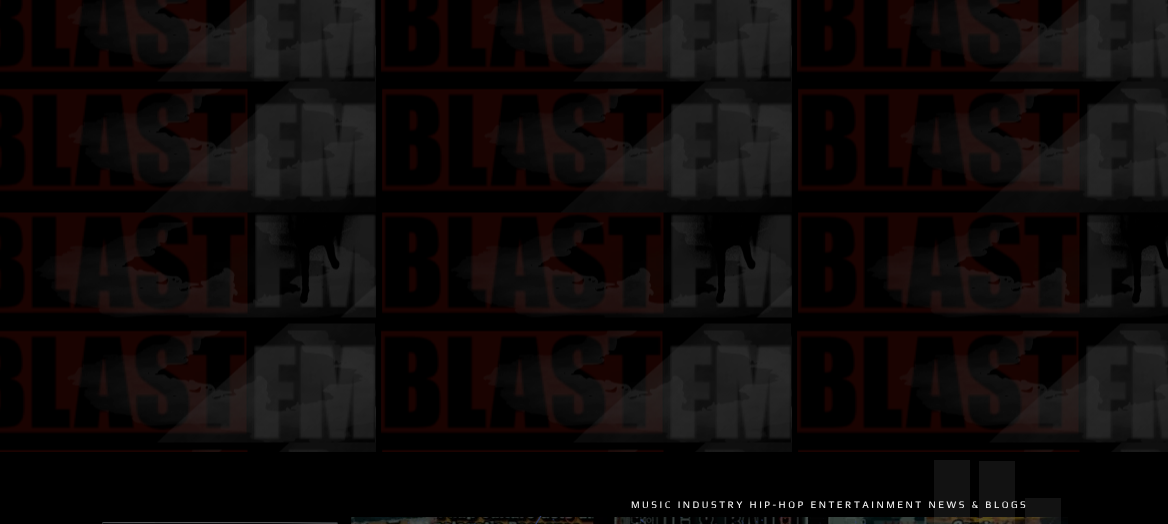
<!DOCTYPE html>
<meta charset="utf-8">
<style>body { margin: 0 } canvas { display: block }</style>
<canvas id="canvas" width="1168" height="524"></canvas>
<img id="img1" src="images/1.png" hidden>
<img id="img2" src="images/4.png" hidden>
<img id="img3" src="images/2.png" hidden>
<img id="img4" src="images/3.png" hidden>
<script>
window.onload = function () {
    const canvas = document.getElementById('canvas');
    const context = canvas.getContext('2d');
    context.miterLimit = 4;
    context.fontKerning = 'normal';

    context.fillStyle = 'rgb(0, 0, 0)';
    context.fillRect(0, 0, 1168, 524);
    context.drawImage(document.getElementById('img1'), 0, 0, 1168, 452);
    context.drawImage(document.getElementById('img2'), 351, 517, 717, 7);
    context.fillStyle = 'rgba(255, 255, 255, 0.07)';
    context.fillRect(934, 460, 36, 64);
    context.fillRect(979, 461, 36, 63);
    context.fillRect(1025, 498, 36, 26);
    context.drawImage(document.getElementById('img3'), 381, 516, 598, 8);
    context.drawImage(document.getElementById('img4'), 102, 522, 236, 2);
    context.letterSpacing = '2.5px';
    context.font = '10px Play';
    context.fillStyle = 'rgb(255, 255, 255)';
    context.fillText('MUSIC INDUSTRY HIP-HOP ENTERTAINMENT NEWS & BLOGS', 631, 508);
};
</script>
